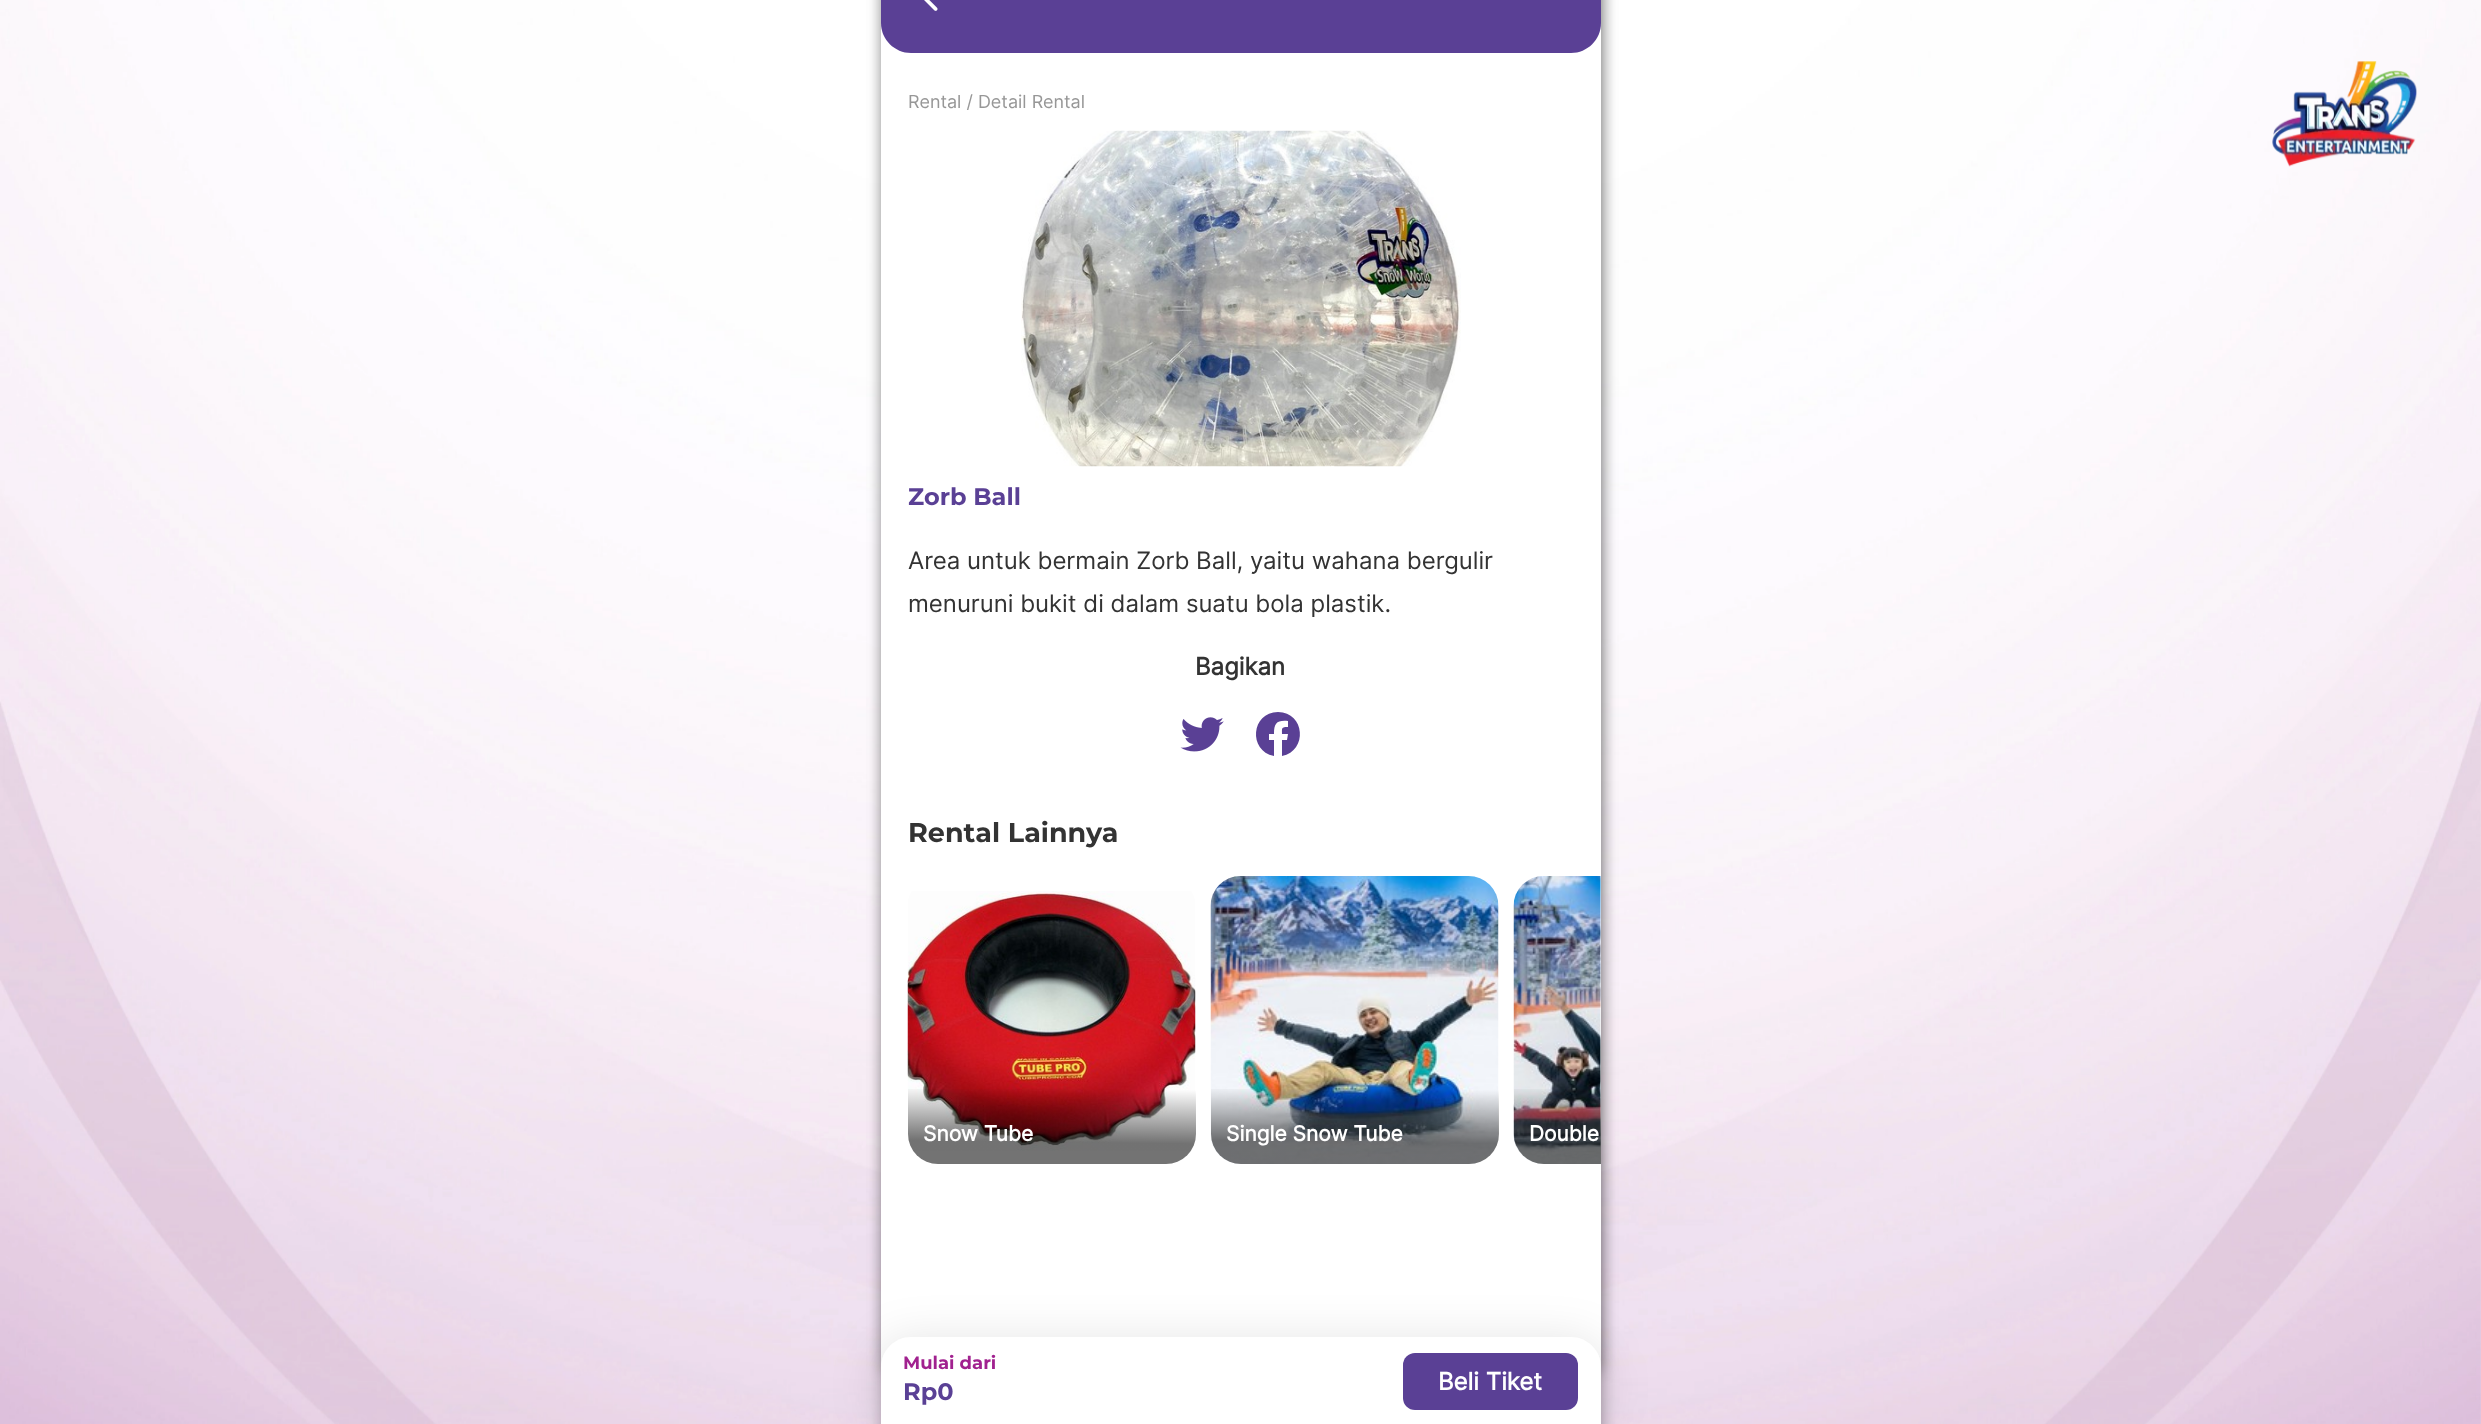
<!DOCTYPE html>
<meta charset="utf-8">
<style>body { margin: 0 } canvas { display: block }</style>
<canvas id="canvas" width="2481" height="1424"></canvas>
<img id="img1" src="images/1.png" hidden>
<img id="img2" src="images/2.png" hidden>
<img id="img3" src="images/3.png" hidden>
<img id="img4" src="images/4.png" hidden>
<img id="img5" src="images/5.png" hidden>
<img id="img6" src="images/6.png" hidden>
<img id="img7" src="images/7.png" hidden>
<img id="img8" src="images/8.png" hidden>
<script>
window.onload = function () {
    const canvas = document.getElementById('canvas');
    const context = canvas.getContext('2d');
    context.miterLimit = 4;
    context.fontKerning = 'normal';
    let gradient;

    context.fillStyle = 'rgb(255, 255, 255)';
    context.fillRect(0, 0, 2481, 1424);
    context.drawImage(document.getElementById('img1'), 0, 0, 2481, 1424);
    context.fillStyle = 'rgba(0, 0, 0, 0.35)';
    context.filter = 'blur(8px)';
    context.beginPath();
    context.rect(884, -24, 717, 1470);
    context.fill();
    context.filter = 'none';
    context.filter = 'blur(8px)';
    context.beginPath();
    context.rect(884, -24, 717, 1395);
    context.fill();
    context.filter = 'none';
    context.fillStyle = 'rgb(255, 255, 255)';
    context.fillRect(881, 23, 720, 1344);
    context.fillStyle = 'rgb(90, 64, 149)';
    context.beginPath();
    context.moveTo(881, -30);
    context.lineTo(1601, -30);
    context.lineTo(1601, 23);
    context.bezierCurveTo(1601, 39.5, 1587.5, 53, 1571, 53);
    context.lineTo(911, 53);
    context.bezierCurveTo(894.5, 53, 881, 39.5, 881, 23);
    context.closePath();
    context.fill();
    context.drawImage(document.getElementById('img2'), 924, 0, 14, 11);
    context.drawImage(document.getElementById('img3'), 1021, 130, 440, 337);
    context.drawImage(document.getElementById('img4'), 1180, 717, 44, 35);
    context.beginPath();
    context.moveTo(1278, 712);
    context.bezierCurveTo(1251, 712, 1248, 751, 1274, 756);
    context.lineTo(1274, 740);
    context.lineTo(1269, 740);
    context.lineTo(1269, 734);
    context.lineTo(1274, 734);
    context.bezierCurveTo(1274, 723, 1277, 720, 1288, 721);
    context.lineTo(1288, 727);
    context.bezierCurveTo(1281, 727, 1282, 728, 1282, 734);
    context.lineTo(1288, 734);
    context.lineTo(1287, 740);
    context.lineTo(1282, 740);
    context.lineTo(1282, 756);
    context.bezierCurveTo(1308, 751, 1305, 712, 1278, 712);
    context.closePath();
    context.fill();
    context.drawImage(document.getElementById('img5'), 907, 891, 289, 260);
    gradient = context.createLinearGradient(1051, 1165, 1052, 1088);
    gradient.addColorStop(0.3, 'rgba(0, 0, 0, 0.55)');
    gradient.addColorStop(1, 'rgba(0, 0, 0, 0)');
    context.fillStyle = gradient;
    context.beginPath();
    context.roundRect(908, 1089, 288, 75, [0, 0, 30, 30]);
    context.fill();
    context.drawImage(document.getElementById('img6'), 1210, 876, 289, 288);
    gradient = context.createLinearGradient(1354, 1165, 1355, 1088);
    gradient.addColorStop(0.3, 'rgba(0, 0, 0, 0.55)');
    gradient.addColorStop(1, 'rgba(0, 0, 0, 0)');
    context.fillStyle = gradient;
    context.beginPath();
    context.roundRect(1211, 1089, 288, 75, [0, 0, 30, 30]);
    context.fill();
    context.drawImage(document.getElementById('img7'), 1513, 876, 88, 288);
    gradient = context.createLinearGradient(1657, 1165, 1658, 1088);
    gradient.addColorStop(0.3, 'rgba(0, 0, 0, 0.55)');
    gradient.addColorStop(1, 'rgba(0, 0, 0, 0)');
    context.fillStyle = gradient;
    context.beginPath();
    context.roundRect(1514, 1089, 87, 75, [0, 0, 0, 30]);
    context.fill();
    context.fillStyle = 'rgba(0, 0, 0, 0.1)';
    context.filter = 'blur(22.5px)';
    context.beginPath();
    context.roundRect(876, 1338, 729, 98, 35);
    context.fill();
    context.filter = 'none';
    context.fillStyle = 'rgb(255, 255, 255)';
    context.beginPath();
    context.moveTo(911, 1337);
    context.lineTo(1571, 1337);
    context.bezierCurveTo(1587.5, 1337, 1601, 1350.5, 1601, 1367);
    context.lineTo(1601, 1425);
    context.lineTo(881, 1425);
    context.lineTo(881, 1367);
    context.bezierCurveTo(881, 1350.5, 894.5, 1337, 911, 1337);
    context.closePath();
    context.fill();
    context.fillStyle = 'rgb(90, 64, 149)';
    context.beginPath();
    context.roundRect(1403, 1353, 175, 57, 12);
    context.fill();
    context.drawImage(document.getElementById('img8'), 2272, 61, 145, 106);
    context.font = '18px Inter';
    context.fillStyle = 'rgb(151, 151, 151)';
    context.fillText('Rental / Detail Rental', 908, 108);
    context.font = 'bold 24px Montserrat';
    context.fillStyle = 'rgb(90, 64, 149)';
    context.fillText('Zorb Ball', 908, 505);
    context.font = '24px Inter';
    context.fillStyle = 'rgb(51, 51, 51)';
    context.fillText('Area untuk bermain Zorb Ball, yaitu wahana bergulir', 908, 569);
    context.fillText('menuruni bukit di dalam suatu bola plastik.', 908, 612);
    context.font = 'bold 24px Inter';
    context.fillText('Bagikan', 1195, 675);
    context.font = 'bold 27px Montserrat';
    context.fillText('Rental Lainnya', 908, 842);
    context.font = 'bold 21px Inter';
    context.fillStyle = 'rgb(255, 255, 255)';
    context.fillText('Snow Tube', 923, 1141);
    context.fillText('Single Snow Tube', 1226, 1141);
    context.fillText('Double', 1529, 1141);
    context.font = 'bold 18px Montserrat';
    context.fillStyle = 'rgb(161, 33, 143)';
    context.fillText('Mulai dari', 903, 1369);
    context.font = 'bold 24px Montserrat';
    context.fillStyle = 'rgb(90, 64, 149)';
    context.fillText('Rp0', 903, 1400);
    context.font = 'bold 24px Inter';
    context.fillStyle = 'rgb(255, 255, 255)';
    context.fillText('Beli Tiket', 1438, 1390);
};
</script>
